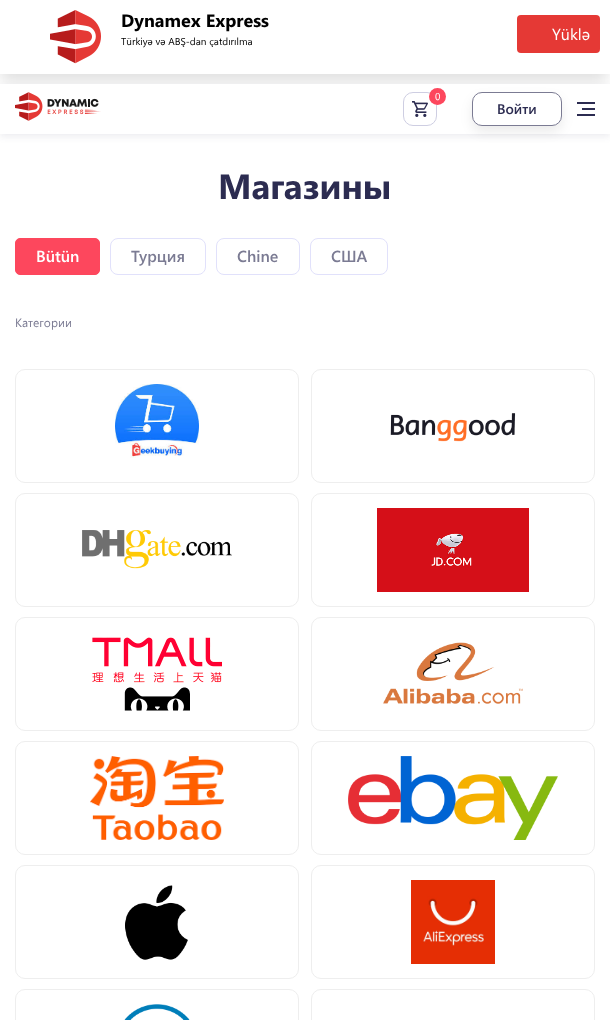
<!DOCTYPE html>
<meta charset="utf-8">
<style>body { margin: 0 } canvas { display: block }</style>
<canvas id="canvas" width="610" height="1020"></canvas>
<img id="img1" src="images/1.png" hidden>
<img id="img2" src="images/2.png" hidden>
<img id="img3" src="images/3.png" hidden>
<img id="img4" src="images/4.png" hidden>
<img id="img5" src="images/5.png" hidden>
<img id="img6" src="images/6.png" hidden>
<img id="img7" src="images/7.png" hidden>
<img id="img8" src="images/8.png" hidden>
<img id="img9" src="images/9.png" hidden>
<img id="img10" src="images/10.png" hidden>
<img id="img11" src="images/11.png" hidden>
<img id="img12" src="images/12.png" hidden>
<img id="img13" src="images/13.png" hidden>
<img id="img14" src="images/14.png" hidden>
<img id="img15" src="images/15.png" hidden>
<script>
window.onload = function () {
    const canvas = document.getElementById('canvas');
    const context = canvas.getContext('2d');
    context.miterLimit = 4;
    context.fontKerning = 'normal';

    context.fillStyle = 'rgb(255, 255, 255)';
    context.fillRect(0, 0, 610, 1020);
    context.save();
    context.beginPath();
    context.rect(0, 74, 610, 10);
    context.clip();
    context.fillStyle = 'rgba(0, 0, 0, 0.12)';
    context.filter = 'blur(7.5px)';
    context.beginPath();
    context.rect(1, 12, 606, 70);
    context.fill();
    context.filter = 'none';
    context.restore();
    context.drawImage(document.getElementById('img1'), 50, 10, 51, 54);
    context.fillStyle = 'rgb(229, 57, 53)';
    context.beginPath();
    context.roundRect(517, 15, 83, 38, 4);
    context.fill();
    context.fillStyle = 'rgba(44, 44, 81, 0.08)';
    context.filter = 'blur(3px)';
    context.beginPath();
    context.rect(0, 87, 610, 50);
    context.fill();
    context.filter = 'none';
    context.fillStyle = 'rgb(255, 255, 255)';
    context.fillRect(0, 84, 610, 50);
    context.drawImage(document.getElementById('img2'), 15, 92, 86, 29);
    context.beginPath();
    context.roundRect(403.5, 92.5, 33, 33, 9.5);
    context.strokeStyle = 'rgb(206, 206, 226)';
    context.stroke();
    context.fillStyle = 'rgb(253, 71, 93)';
    context.beginPath();
    context.arc(437.5, 96.5, 8.5, 0, 2 * Math.PI);
    context.fill();
    context.drawImage(document.getElementById('img3'), 412, 101, 16, 16);
    context.fillStyle = 'rgba(0, 0, 0, 0.08)';
    context.filter = 'blur(6px)';
    context.beginPath();
    context.roundRect(472, 98, 90, 34, 10);
    context.fill();
    context.filter = 'none';
    context.fillStyle = 'rgb(255, 255, 255)';
    context.beginPath();
    context.roundRect(472.5, 92.5, 89, 33, 9.5);
    context.fill();
    context.strokeStyle = 'rgb(123, 123, 147)';
    context.stroke();
    context.drawImage(document.getElementById('img4'), 577, 102, 18, 14);
    context.fillStyle = 'rgb(253, 71, 93)';
    context.beginPath();
    context.roundRect(15.5, 238.5, 84, 36, 4.5);
    context.fill();
    context.strokeStyle = 'rgb(253, 71, 93)';
    context.stroke();
    context.beginPath();
    context.roundRect(110.5, 238.5, 95, 36, 7.5);
    context.strokeStyle = 'rgb(225, 225, 251)';
    context.stroke();
    context.beginPath();
    context.roundRect(216.5, 238.5, 83, 36, 7.5);
    context.stroke();
    context.beginPath();
    context.roundRect(310.5, 238.5, 77, 36, 7.5);
    context.stroke();
    context.beginPath();
    context.roundRect(15.5, 369.5, 283, 113, 9.5);
    context.strokeStyle = 'rgb(238, 238, 238)';
    context.stroke();
    context.drawImage(document.getElementById('img5'), 115, 384, 84, 74);
    context.beginPath();
    context.roundRect(311.5, 369.5, 283, 113, 9.5);
    context.stroke();
    context.drawImage(document.getElementById('img6'), 390, 413, 126, 29);
    context.beginPath();
    context.roundRect(15.5, 493.5, 283, 113, 9.5);
    context.stroke();
    context.drawImage(document.getElementById('img7'), 82, 530, 150, 39);
    context.beginPath();
    context.roundRect(311.5, 493.5, 283, 113, 9.5);
    context.stroke();
    context.drawImage(document.getElementById('img8'), 377, 508, 152, 84);
    context.beginPath();
    context.roundRect(15.5, 617.5, 283, 113, 9.5);
    context.stroke();
    context.drawImage(document.getElementById('img9'), 92, 637, 130, 74);
    context.beginPath();
    context.roundRect(311.5, 617.5, 283, 113, 9.5);
    context.stroke();
    context.drawImage(document.getElementById('img10'), 383, 642, 140, 62);
    context.beginPath();
    context.roundRect(15.5, 741.5, 283, 113, 9.5);
    context.stroke();
    context.drawImage(document.getElementById('img11'), 90, 756, 134, 84);
    context.beginPath();
    context.roundRect(311.5, 741.5, 283, 113, 9.5);
    context.stroke();
    context.drawImage(document.getElementById('img12'), 348, 756, 210, 84);
    context.beginPath();
    context.roundRect(15.5, 865.5, 283, 113, 9.5);
    context.stroke();
    context.drawImage(document.getElementById('img13'), 125, 885, 63, 75);
    context.beginPath();
    context.roundRect(311.5, 865.5, 283, 113, 9.5);
    context.stroke();
    context.drawImage(document.getElementById('img14'), 411, 880, 84, 84);
    context.beginPath();
    context.roundRect(15.5, 989.5, 283, 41, 9.5);
    context.stroke();
    context.drawImage(document.getElementById('img15'), 124, 1004, 66, 16);
    context.beginPath();
    context.roundRect(311.5, 989.5, 283, 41, 9.5);
    context.stroke();
    context.font = 'bold 18px Segoe UI';
    context.fillStyle = 'rgb(0, 0, 0)';
    context.fillText('Dynamex Express', 121, 27);
    context.font = '10px Segoe UI';
    context.fillText('Türkiyə və ABŞ-dan çatdırılma', 121, 45);
    context.font = '16px Segoe UI';
    context.fillStyle = 'rgb(255, 255, 255)';
    context.fillText('Yüklə', 552, 40);
    context.font = '10px Segoe UI';
    context.fillText('0', 435, 100);
    context.font = '600 14px Segoe UI';
    context.fillStyle = 'rgb(44, 44, 81)';
    context.fillText('Войти', 497, 114);
    context.font = 'bold 35px Segoe UI';
    context.fillText('Магазины', 218, 199);
    context.font = '600 16px Segoe UI';
    context.fillStyle = 'rgb(255, 255, 255)';
    context.fillText('Bütün', 36, 262);
    context.fillStyle = 'rgb(123, 123, 147)';
    context.fillText('Турция', 131, 262);
    context.fillText('Chine', 237, 262);
    context.fillText('США', 331, 262);
    context.font = '12px Segoe UI';
    context.fillText('Категории', 15, 327);
};
</script>
